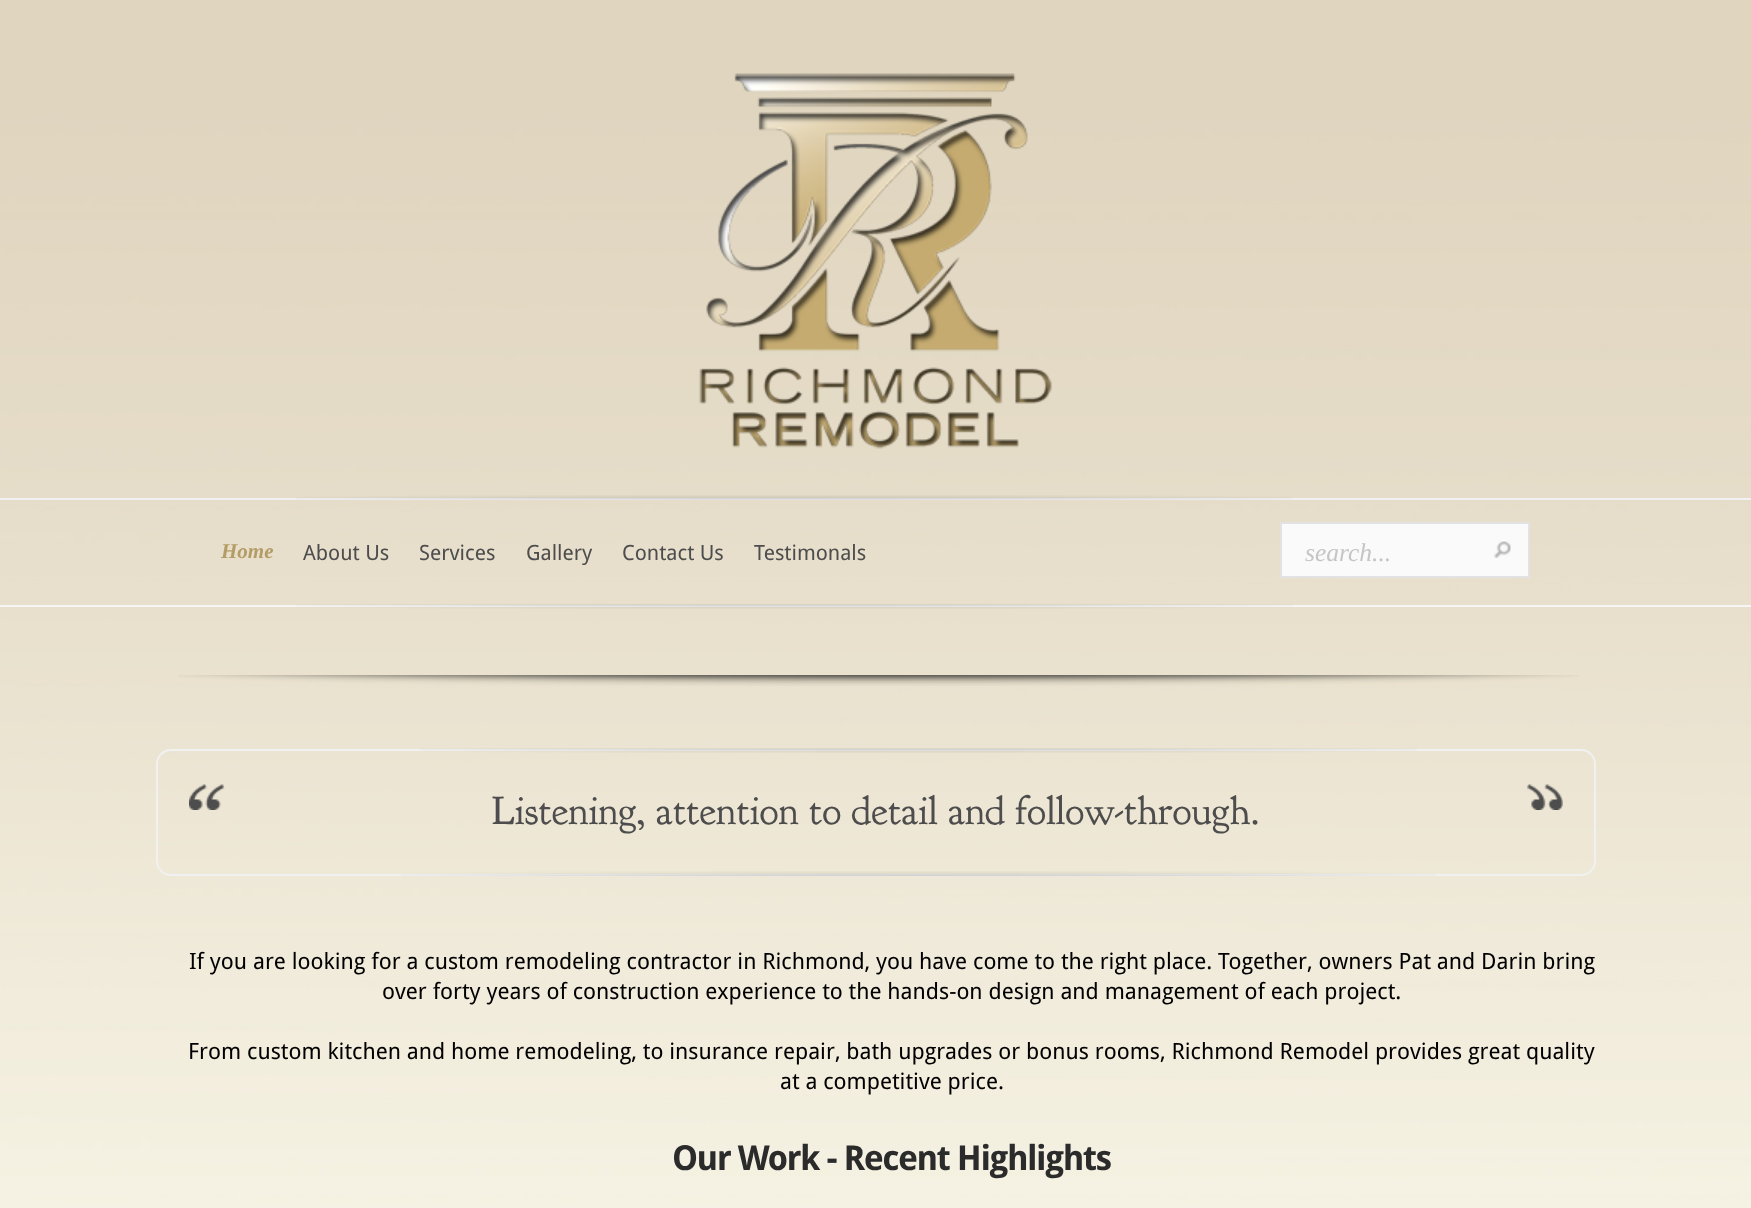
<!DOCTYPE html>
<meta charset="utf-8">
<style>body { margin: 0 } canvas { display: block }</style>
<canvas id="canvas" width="1751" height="1208"></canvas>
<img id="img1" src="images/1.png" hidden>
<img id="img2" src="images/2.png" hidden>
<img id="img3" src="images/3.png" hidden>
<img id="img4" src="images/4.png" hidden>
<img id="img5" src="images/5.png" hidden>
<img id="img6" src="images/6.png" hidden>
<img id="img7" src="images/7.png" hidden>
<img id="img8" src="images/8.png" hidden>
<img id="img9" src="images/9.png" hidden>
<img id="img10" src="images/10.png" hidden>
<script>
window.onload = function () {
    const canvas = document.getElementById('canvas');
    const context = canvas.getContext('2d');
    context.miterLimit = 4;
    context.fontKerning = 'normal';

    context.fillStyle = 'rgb(255, 255, 255)';
    context.fillRect(0, 0, 1751, 1208);
    context.drawImage(document.getElementById('img1'), 0, 0, 1751, 1208);
    context.drawImage(document.getElementById('img2'), 699, 73, 353, 376);
    context.fillStyle = 'rgb(241, 241, 241)';
    context.fillRect(0, 498, 1751, 2);
    context.fillStyle = 'rgb(246, 246, 246)';
    context.fillRect(0, 605, 1751, 2);
    context.drawImage(document.getElementById('img3'), 296, 495, 996, 5);
    context.fillStyle = 'rgb(250, 250, 250)';
    context.beginPath();
    context.rect(1281, 523, 248, 54);
    context.fill();
    context.strokeStyle = 'rgb(226, 226, 226)';
    context.lineWidth = 2;
    context.stroke();
    context.drawImage(document.getElementById('img4'), 1494, 540, 17, 18);
    context.drawImage(document.getElementById('img5'), 296, 604, 997, 5);
    context.drawImage(document.getElementById('img6'), 178, 675, 1401, 11);
    context.drawImage(document.getElementById('img7'), 189, 784, 36, 26);
    context.beginPath();
    context.roundRect(157, 750, 1438, 125, 14);
    context.strokeStyle = 'rgb(241, 241, 241)';
    context.stroke();
    context.drawImage(document.getElementById('img8'), 420, 748, 997, 5);
    context.drawImage(document.getElementById('img9'), 1527, 784, 36, 26);
    context.drawImage(document.getElementById('img10'), 401, 871, 1035, 5);
    context.font = 'italic bold 21px Liberation Serif';
    context.fillStyle = 'rgb(180, 156, 102)';
    context.fillText('Home', 221, 558);
    context.font = '21px Droid Sans';
    context.fillStyle = 'rgb(77, 77, 77)';
    context.fillText('About Us', 303, 560);
    context.fillText('Services', 419, 560);
    context.fillText('Gallery', 526, 560);
    context.fillText('Contact Us', 622, 560);
    context.fillText('Testimonals', 754, 560);
    context.font = 'italic 25.5px Liberation Serif';
    context.fillStyle = 'rgb(197, 197, 197)';
    context.fillText('search...', 1305, 561);
    context.font = '40.5px "Goudy Bookletter 1911"';
    context.fillStyle = 'rgb(77, 77, 77)';
    context.fillText('Listening, attention to detail and follow-through.', 492, 824);
    context.font = '22.5px Droid Sans';
    context.fillStyle = 'rgb(0, 0, 0)';
    context.fillText('If you are looking for a custom remodeling contractor in Richmond, you have come to the right place. Together, owners Pat and Darin bring', 189, 969);
    context.fillText('over forty years of construction experience to the hands-on design and management of each project.', 382, 999);
    context.fillText('From custom kitchen and home remodeling, to insurance repair, bath upgrades or bonus rooms, Richmond Remodel provides great quality', 188, 1059);
    context.fillText('at a competitive price.', 780, 1089);
    context.letterSpacing = '-1.5px';
    context.font = 'bold 34.5px Droid Sans';
    context.fillStyle = 'rgb(43, 43, 43)';
    context.fillText('Our Work - Recent Highlights', 672, 1170);
};
</script>
